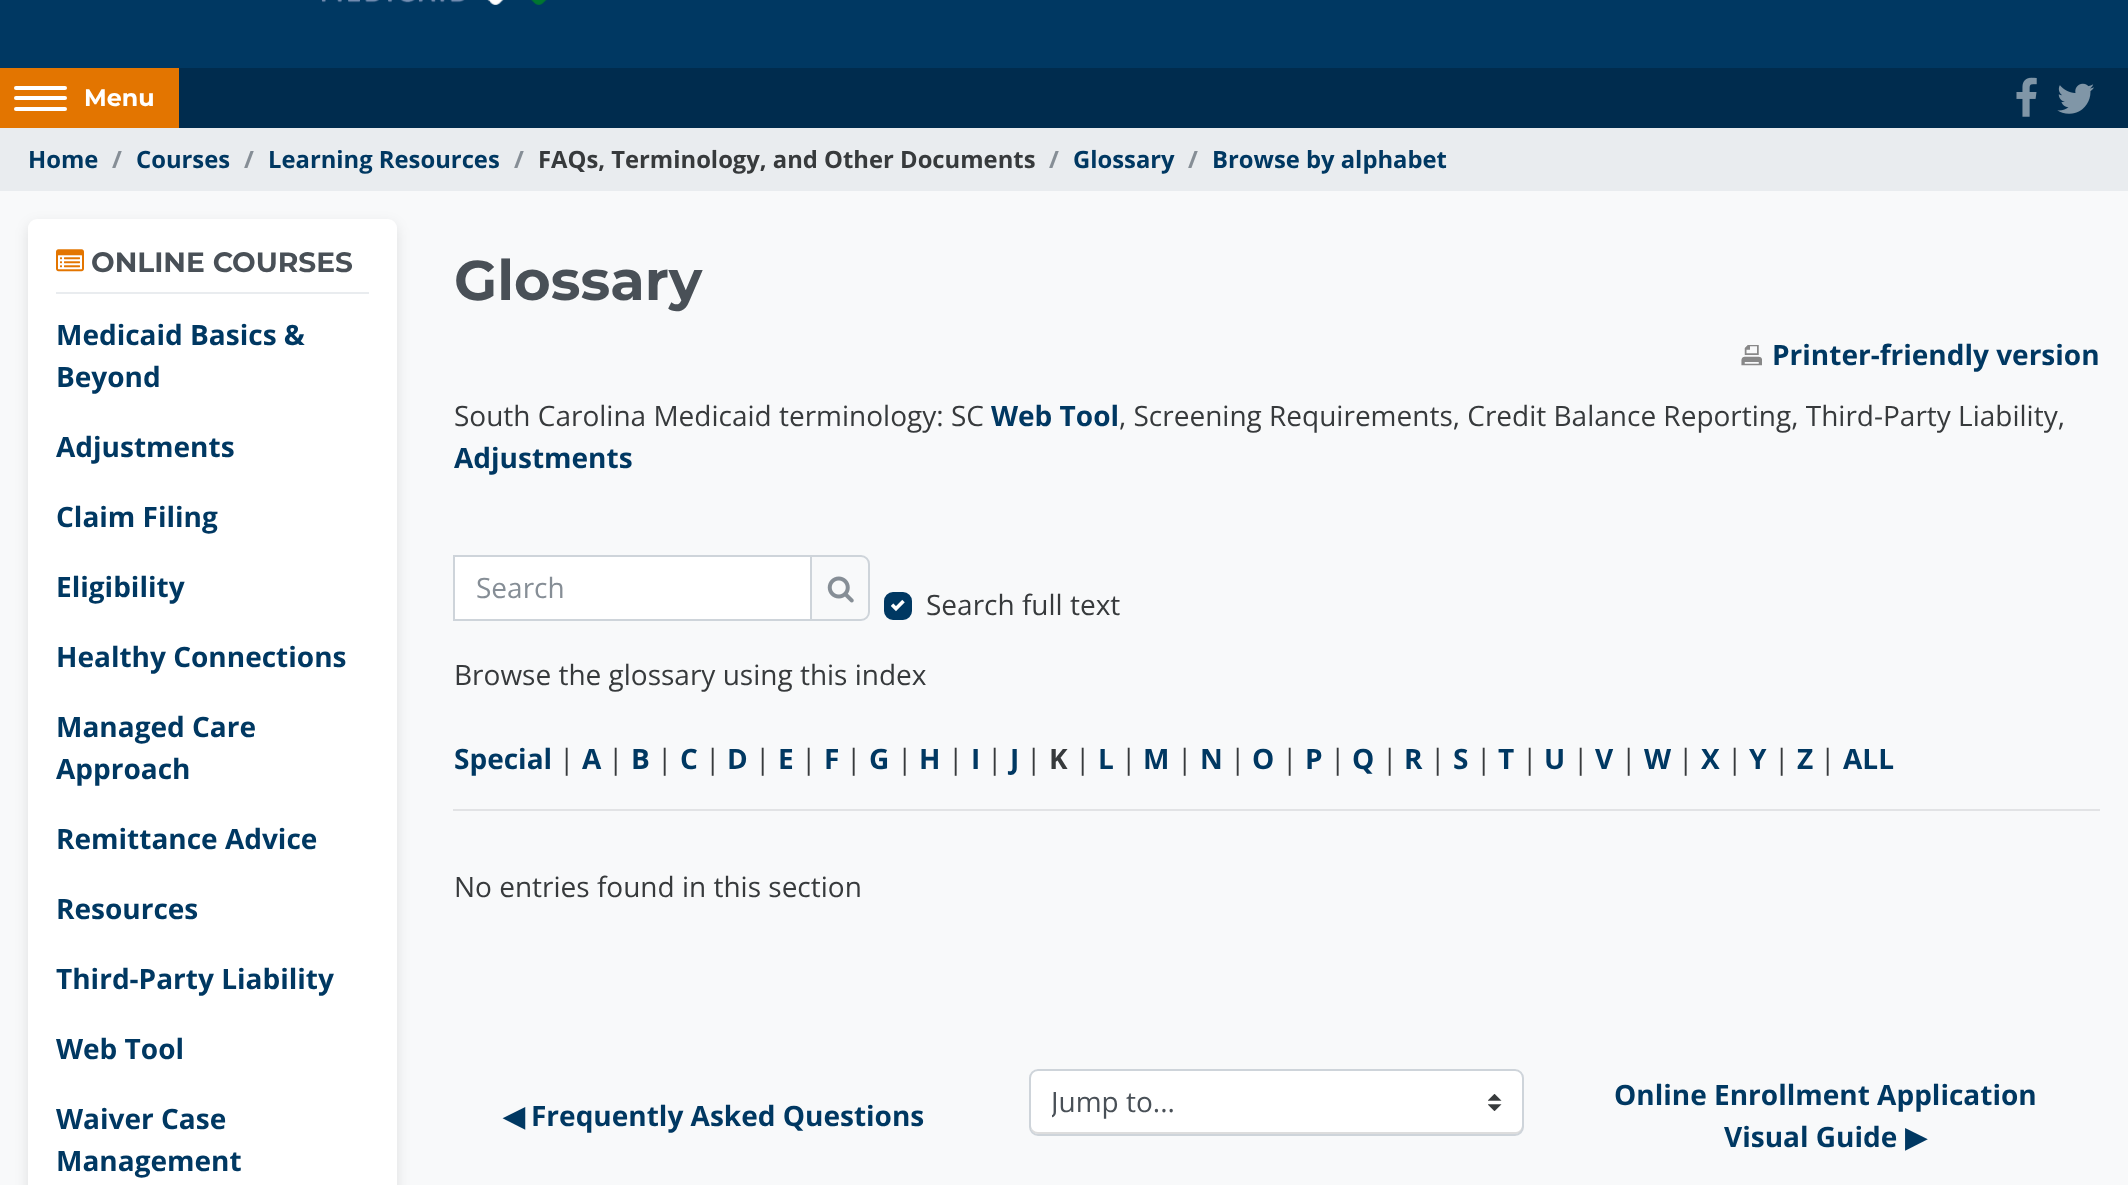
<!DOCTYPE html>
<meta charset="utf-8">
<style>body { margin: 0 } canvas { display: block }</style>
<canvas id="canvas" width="2128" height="1185"></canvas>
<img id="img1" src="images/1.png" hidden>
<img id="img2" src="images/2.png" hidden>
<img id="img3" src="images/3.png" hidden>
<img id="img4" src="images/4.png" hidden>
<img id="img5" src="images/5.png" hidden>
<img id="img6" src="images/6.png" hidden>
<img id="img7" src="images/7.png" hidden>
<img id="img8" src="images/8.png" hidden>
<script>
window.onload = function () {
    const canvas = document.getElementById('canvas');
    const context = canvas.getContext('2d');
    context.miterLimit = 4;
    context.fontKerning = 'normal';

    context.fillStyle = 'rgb(248, 249, 250)';
    context.fillRect(0, 0, 2128, 1185);
    context.fillStyle = 'rgb(0, 56, 98)';
    context.fillRect(0, 0, 2128, 68);
    context.drawImage(document.getElementById('img1'), 321, 0, 226, 5);
    context.fillStyle = 'rgb(0, 44, 78)';
    context.fillRect(179, 68, 1949, 60);
    context.fillStyle = 'rgb(227, 117, 0)';
    context.fillRect(0, 68, 179, 60);
    context.fillStyle = 'rgb(255, 255, 255)';
    context.beginPath();
    context.roundRect(14, 86, 53, 4, 2);
    context.fill();
    context.beginPath();
    context.roundRect(14, 96, 53, 4, 2);
    context.fill();
    context.beginPath();
    context.roundRect(14, 107, 53, 4, 2);
    context.fill();
    context.drawImage(document.getElementById('img2'), 2016, 77, 21, 40);
    context.drawImage(document.getElementById('img3'), 2057, 83, 37, 31);
    context.fillStyle = 'rgb(233, 236, 239)';
    context.fillRect(0, 128, 2128, 63);
    context.fillStyle = 'rgba(0, 0, 0, 0.1)';
    context.filter = 'blur(7px)';
    context.beginPath();
    context.roundRect(28, 224, 369, 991, 9);
    context.fill();
    context.filter = 'none';
    context.fillStyle = 'rgb(255, 255, 255)';
    context.beginPath();
    context.roundRect(28, 219, 369, 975, 9);
    context.fill();
    context.fillStyle = 'rgb(233, 236, 239)';
    context.fillRect(56, 292, 313, 2);
    context.drawImage(document.getElementById('img4'), 56, 249, 28, 23);
    context.drawImage(document.getElementById('img5'), 1741, 345, 21, 21);
    context.fillStyle = 'rgb(255, 255, 255)';
    context.beginPath();
    context.rect(454, 556, 357, 64);
    context.fill();
    context.strokeStyle = 'rgb(206, 212, 218)';
    context.lineWidth = 2;
    context.stroke();
    context.fillStyle = 'rgb(248, 249, 250)';
    context.beginPath();
    context.roundRect(811, 556, 58, 64, [0, 8, 8, 0]);
    context.fill();
    context.stroke();
    context.drawImage(document.getElementById('img6'), 827, 576, 27, 27);
    context.fillStyle = 'rgb(0, 56, 98)';
    context.beginPath();
    context.roundRect(885, 593, 26, 26, 8);
    context.fill();
    context.strokeStyle = 'rgb(0, 56, 98)';
    context.stroke();
    context.drawImage(document.getElementById('img7'), 891, 599, 14, 13);
    context.fillStyle = 'rgb(226, 227, 229)';
    context.fillRect(453, 809, 1647, 2);
    context.fillStyle = 'rgb(255, 255, 255)';
    context.beginPath();
    context.roundRect(1029, 1069, 495, 67, 9);
    context.fill();
    context.drawImage(document.getElementById('img8'), 1488, 1094, 14, 17);
    context.fillStyle = 'rgb(221, 221, 221)';
    context.beginPath();
    context.moveTo(1031, 1125);
    context.lineTo(1031, 1127);
    context.bezierCurveTo(1031, 1131, 1034, 1134, 1038, 1134);
    context.lineTo(1516, 1134);
    context.bezierCurveTo(1520, 1134, 1523, 1131, 1523, 1127);
    context.lineTo(1523, 1078);
    context.bezierCurveTo(1523, 1077, 1523, 1075, 1522, 1074);
    context.lineTo(1522, 1125);
    context.bezierCurveTo(1522, 1129, 1519, 1132, 1516, 1132);
    context.lineTo(1038, 1132);
    context.bezierCurveTo(1034, 1132, 1031, 1129, 1031, 1125);
    context.closePath();
    context.fill();
    context.beginPath();
    context.roundRect(1030, 1070, 493, 65, 8);
    context.strokeStyle = 'rgb(206, 212, 218)';
    context.stroke();
    context.font = 'bold 23.8px Montserrat';
    context.fillStyle = 'rgb(255, 255, 255)';
    context.fillText('Menu', 84, 106);
    context.font = 'bold 23.8px Open Sans';
    context.fillStyle = 'rgb(0, 56, 98)';
    context.fillText('Home', 28, 168);
    context.fillStyle = 'rgb(134, 142, 150)';
    context.fillText('/', 112, 168);
    context.fillStyle = 'rgb(0, 56, 98)';
    context.fillText('Courses', 136, 168);
    context.fillStyle = 'rgb(134, 142, 150)';
    context.fillText('/', 244, 168);
    context.fillStyle = 'rgb(0, 56, 98)';
    context.fillText('Learning Resources', 268, 168);
    context.fillStyle = 'rgb(134, 142, 150)';
    context.fillText('/', 514, 168);
    context.fillStyle = 'rgb(55, 58, 60)';
    context.fillText('FAQs, Terminology, and Other Documents', 538, 168);
    context.fillStyle = 'rgb(134, 142, 150)';
    context.fillText('/', 1049, 168);
    context.fillStyle = 'rgb(0, 56, 98)';
    context.fillText('Glossary', 1073, 168);
    context.fillStyle = 'rgb(134, 142, 150)';
    context.fillText('/', 1188, 168);
    context.fillStyle = 'rgb(0, 56, 98)';
    context.fillText('Browse by alphabet', 1212, 168);
    context.font = 'bold 28px Montserrat';
    context.fillStyle = 'rgb(73, 80, 87)';
    context.fillText('ONLINE COURSES', 91, 272);
    context.font = 'bold 28px Open Sans';
    context.fillStyle = 'rgb(0, 56, 98)';
    context.fillText('Medicaid Basics &', 56, 345);
    context.fillText('Beyond', 56, 387);
    context.fillText('Adjustments', 56, 457);
    context.fillText('Claim Filing', 56, 527);
    context.fillText('Eligibility', 56, 597);
    context.fillText('Healthy Connections', 56, 667);
    context.fillText('Managed Care', 56, 737);
    context.fillText('Approach', 56, 779);
    context.fillText('Remittance Advice', 56, 849);
    context.fillText('Resources', 56, 919);
    context.fillText('Third-Party Liability', 56, 989);
    context.fillText('Web Tool', 56, 1059);
    context.fillText('Waiver Case', 56, 1129);
    context.fillText('Management', 56, 1171);
    context.font = 'bold 56px Montserrat';
    context.fillStyle = 'rgb(73, 80, 87)';
    context.fillText('Glossary', 454, 300);
    context.font = 'bold 28px Open Sans';
    context.fillStyle = 'rgb(0, 56, 98)';
    context.fillText('Printer-friendly version', 1772, 365);
    context.font = '28px Open Sans';
    context.fillStyle = 'rgb(55, 58, 60)';
    context.fillText('South Carolina Medicaid terminology: SC', 454, 426);
    context.font = 'bold 28px Open Sans';
    context.fillStyle = 'rgb(0, 56, 98)';
    context.fillText('Web Tool', 991, 426);
    context.font = '28px Open Sans';
    context.fillStyle = 'rgb(55, 58, 60)';
    context.fillText(', Screening Requirements, Credit Balance Reporting, Third-Party Liability,', 1119, 426);
    context.font = 'bold 28px Open Sans';
    context.fillStyle = 'rgb(0, 56, 98)';
    context.fillText('Adjustments', 454, 468);
    context.font = '28px Open Sans';
    context.fillStyle = 'rgb(134, 142, 150)';
    context.fillText('Search', 476, 598);
    context.fillStyle = 'rgb(55, 58, 60)';
    context.fillText('Search full text', 926, 615);
    context.fillText('Browse the glossary using this index', 454, 685);
    context.font = 'bold 28px Open Sans';
    context.fillStyle = 'rgb(0, 56, 98)';
    context.fillText('Special', 454, 769);
    context.font = '28px Open Sans';
    context.fillStyle = 'rgb(55, 58, 60)';
    context.fillText('|', 559, 769);
    context.font = 'bold 28px Open Sans';
    context.fillStyle = 'rgb(0, 56, 98)';
    context.fillText('A', 582, 769);
    context.font = '28px Open Sans';
    context.fillStyle = 'rgb(55, 58, 60)';
    context.fillText('|', 608, 769);
    context.font = 'bold 28px Open Sans';
    context.fillStyle = 'rgb(0, 56, 98)';
    context.fillText('B', 631, 769);
    context.font = '28px Open Sans';
    context.fillStyle = 'rgb(55, 58, 60)';
    context.fillText('|', 657, 769);
    context.font = 'bold 28px Open Sans';
    context.fillStyle = 'rgb(0, 56, 98)';
    context.fillText('C', 680, 769);
    context.font = '28px Open Sans';
    context.fillStyle = 'rgb(55, 58, 60)';
    context.fillText('|', 705, 769);
    context.font = 'bold 28px Open Sans';
    context.fillStyle = 'rgb(0, 56, 98)';
    context.fillText('D', 727, 769);
    context.font = '28px Open Sans';
    context.fillStyle = 'rgb(55, 58, 60)';
    context.fillText('|', 755, 769);
    context.font = 'bold 28px Open Sans';
    context.fillStyle = 'rgb(0, 56, 98)';
    context.fillText('E', 778, 769);
    context.font = '28px Open Sans';
    context.fillStyle = 'rgb(55, 58, 60)';
    context.fillText('|', 801, 769);
    context.font = 'bold 28px Open Sans';
    context.fillStyle = 'rgb(0, 56, 98)';
    context.fillText('F', 824, 769);
    context.font = '28px Open Sans';
    context.fillStyle = 'rgb(55, 58, 60)';
    context.fillText('|', 846, 769);
    context.font = 'bold 28px Open Sans';
    context.fillStyle = 'rgb(0, 56, 98)';
    context.fillText('G', 869, 769);
    context.font = '28px Open Sans';
    context.fillStyle = 'rgb(55, 58, 60)';
    context.fillText('|', 897, 769);
    context.font = 'bold 28px Open Sans';
    context.fillStyle = 'rgb(0, 56, 98)';
    context.fillText('H', 919, 769);
    context.font = '28px Open Sans';
    context.fillStyle = 'rgb(55, 58, 60)';
    context.fillText('|', 948, 769);
    context.font = 'bold 28px Open Sans';
    context.fillStyle = 'rgb(0, 56, 98)';
    context.fillText('I', 971, 769);
    context.font = '28px Open Sans';
    context.fillStyle = 'rgb(55, 58, 60)';
    context.fillText('|', 987, 769);
    context.font = 'bold 28px Open Sans';
    context.fillStyle = 'rgb(0, 56, 98)';
    context.fillText('J', 1010, 769);
    context.font = '28px Open Sans';
    context.fillStyle = 'rgb(55, 58, 60)';
    context.fillText('|', 1026, 769);
    context.font = 'bold 28px Open Sans';
    context.fillText('K', 1049, 769);
    context.font = '28px Open Sans';
    context.fillText('|', 1075, 769);
    context.font = 'bold 28px Open Sans';
    context.fillStyle = 'rgb(0, 56, 98)';
    context.fillText('L', 1098, 769);
    context.font = '28px Open Sans';
    context.fillStyle = 'rgb(55, 58, 60)';
    context.fillText('|', 1121, 769);
    context.font = 'bold 28px Open Sans';
    context.fillStyle = 'rgb(0, 56, 98)';
    context.fillText('M', 1143, 769);
    context.font = '28px Open Sans';
    context.fillStyle = 'rgb(55, 58, 60)';
    context.fillText('|', 1177, 769);
    context.font = 'bold 28px Open Sans';
    context.fillStyle = 'rgb(0, 56, 98)';
    context.fillText('N', 1200, 769);
    context.font = '28px Open Sans';
    context.fillStyle = 'rgb(55, 58, 60)';
    context.fillText('|', 1230, 769);
    context.font = 'bold 28px Open Sans';
    context.fillStyle = 'rgb(0, 56, 98)';
    context.fillText('O', 1252, 769);
    context.font = '28px Open Sans';
    context.fillStyle = 'rgb(55, 58, 60)';
    context.fillText('|', 1282, 769);
    context.font = 'bold 28px Open Sans';
    context.fillStyle = 'rgb(0, 56, 98)';
    context.fillText('P', 1305, 769);
    context.font = '28px Open Sans';
    context.fillStyle = 'rgb(55, 58, 60)';
    context.fillText('|', 1330, 769);
    context.font = 'bold 28px Open Sans';
    context.fillStyle = 'rgb(0, 56, 98)';
    context.fillText('Q', 1352, 769);
    context.font = '28px Open Sans';
    context.fillStyle = 'rgb(55, 58, 60)';
    context.fillText('|', 1382, 769);
    context.font = 'bold 28px Open Sans';
    context.fillStyle = 'rgb(0, 56, 98)';
    context.fillText('R', 1404, 769);
    context.font = '28px Open Sans';
    context.fillStyle = 'rgb(55, 58, 60)';
    context.fillText('|', 1430, 769);
    context.font = 'bold 28px Open Sans';
    context.fillStyle = 'rgb(0, 56, 98)';
    context.fillText('S', 1453, 769);
    context.font = '28px Open Sans';
    context.fillStyle = 'rgb(55, 58, 60)';
    context.fillText('|', 1476, 769);
    context.font = 'bold 28px Open Sans';
    context.fillStyle = 'rgb(0, 56, 98)';
    context.fillText('T', 1498, 769);
    context.font = '28px Open Sans';
    context.fillStyle = 'rgb(55, 58, 60)';
    context.fillText('|', 1522, 769);
    context.font = 'bold 28px Open Sans';
    context.fillStyle = 'rgb(0, 56, 98)';
    context.fillText('U', 1544, 769);
    context.font = '28px Open Sans';
    context.fillStyle = 'rgb(55, 58, 60)';
    context.fillText('|', 1573, 769);
    context.font = 'bold 28px Open Sans';
    context.fillStyle = 'rgb(0, 56, 98)';
    context.fillText('V', 1595, 769);
    context.font = '28px Open Sans';
    context.fillStyle = 'rgb(55, 58, 60)';
    context.fillText('|', 1621, 769);
    context.font = 'bold 28px Open Sans';
    context.fillStyle = 'rgb(0, 56, 98)';
    context.fillText('W', 1644, 769);
    context.font = '28px Open Sans';
    context.fillStyle = 'rgb(55, 58, 60)';
    context.fillText('|', 1678, 769);
    context.font = 'bold 28px Open Sans';
    context.fillStyle = 'rgb(0, 56, 98)';
    context.fillText('X', 1701, 769);
    context.font = '28px Open Sans';
    context.fillStyle = 'rgb(55, 58, 60)';
    context.fillText('|', 1727, 769);
    context.font = 'bold 28px Open Sans';
    context.fillStyle = 'rgb(0, 56, 98)';
    context.fillText('Y', 1749, 769);
    context.font = '28px Open Sans';
    context.fillStyle = 'rgb(55, 58, 60)';
    context.fillText('|', 1774, 769);
    context.font = 'bold 28px Open Sans';
    context.fillStyle = 'rgb(0, 56, 98)';
    context.fillText('Z', 1797, 769);
    context.font = '28px Open Sans';
    context.fillStyle = 'rgb(55, 58, 60)';
    context.fillText('|', 1820, 769);
    context.font = 'bold 28px Open Sans';
    context.fillStyle = 'rgb(0, 56, 98)';
    context.fillText('ALL', 1843, 769);
    context.font = '28px Open Sans';
    context.fillStyle = 'rgb(55, 58, 60)';
    context.fillText('No entries found in this section', 454, 897);
    context.font = 'bold 28px DejaVu Sans';
    context.fillStyle = 'rgb(0, 56, 98)';
    context.fillText('◀︎', 503, 1126);
    context.font = 'bold 28px Open Sans';
    context.fillText('Frequently Asked Questions', 531, 1126);
    context.save();
    context.beginPath();
    context.rect(1052, 1082, 422, 42);
    context.clip();
    context.font = '28px Open Sans';
    context.fillStyle = 'rgb(73, 80, 87)';
    context.fillText('Jump to...', 1051, 1112);
    context.restore();
    context.fillText('Online Enrollment Application', 1614, 1105);
    context.fillText('Visual Guide', 1724, 1147);
    context.font = 'bold 28px DejaVu Sans';
    context.fillText('▶︎', 1905, 1147);
};
</script>
